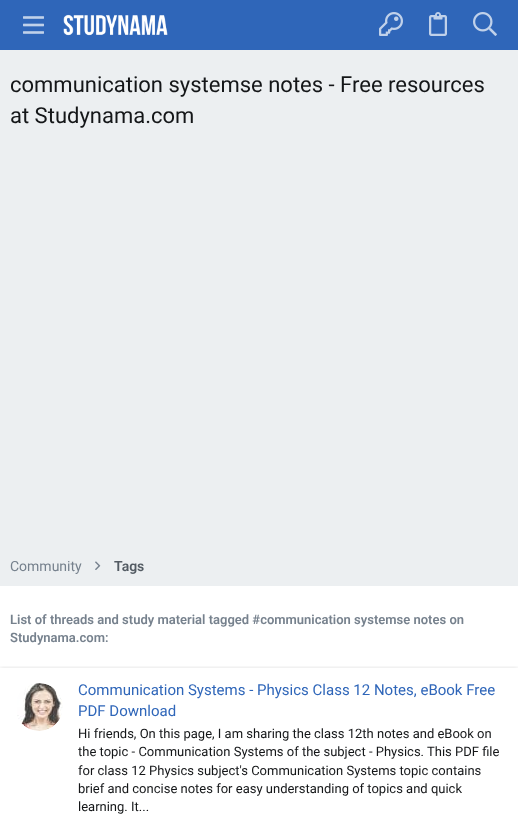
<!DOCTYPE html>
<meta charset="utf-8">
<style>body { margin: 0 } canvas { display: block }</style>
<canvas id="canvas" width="518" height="816"></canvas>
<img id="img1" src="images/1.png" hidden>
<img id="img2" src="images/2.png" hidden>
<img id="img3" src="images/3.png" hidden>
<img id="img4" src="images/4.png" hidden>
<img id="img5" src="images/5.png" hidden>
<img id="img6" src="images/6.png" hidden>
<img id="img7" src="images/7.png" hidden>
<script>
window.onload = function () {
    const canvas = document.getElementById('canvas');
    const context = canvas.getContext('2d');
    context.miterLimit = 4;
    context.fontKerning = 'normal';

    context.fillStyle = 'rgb(236, 239, 241)';
    context.fillRect(0, 0, 518, 816);
    context.fillStyle = 'rgb(47, 102, 185)';
    context.fillRect(0, 0, 518, 50);
    context.drawImage(document.getElementById('img1'), 23, 16, 21, 18);
    context.drawImage(document.getElementById('img2'), 63, 14, 105, 22);
    context.drawImage(document.getElementById('img3'), 379, 12, 24, 24);
    context.drawImage(document.getElementById('img4'), 429, 12, 18, 24);
    context.drawImage(document.getElementById('img5'), 473, 12, 24, 24);
    context.drawImage(document.getElementById('img6'), 95, 561, 6, 9);
    context.fillStyle = 'rgb(255, 255, 255)';
    context.fillRect(0, 586, 518, 230);
    context.save();
    context.beginPath();
    context.rect(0, 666, 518, 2);
    context.clip();
    context.fillStyle = 'rgba(0, 0, 0, 0.2)';
    context.filter = 'blur(2.5px)';
    context.beginPath();
    context.rect(0, 669, 518, 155);
    context.fill();
    context.filter = 'none';
    context.restore();
    context.drawImage(document.getElementById('img7'), 17, 683, 46, 48);
    context.font = '22px Roboto';
    context.fillStyle = 'rgb(20, 22, 24)';
    context.fillText('communication systemse notes - Free resources', 10, 92);
    context.fillText('at Studynama.com', 10, 123);
    context.font = '14px Roboto';
    context.fillStyle = 'rgb(118, 129, 141)';
    context.fillText('Community', 10, 571);
    context.font = '600 14px Roboto';
    context.fillStyle = 'rgb(83, 91, 99)';
    context.fillText('Tags', 114, 571);
    context.font = '600 13px Roboto';
    context.fillStyle = 'rgb(118, 129, 141)';
    context.fillText('List of threads and study material tagged #communication systemse notes on', 10, 624);
    context.fillText('Studynama.com:', 10, 642);
    context.font = '15px Roboto';
    context.fillStyle = 'rgb(47, 102, 185)';
    context.fillText('Communication Systems - Physics Class 12 Notes, eBook Free', 78, 695);
    context.fillText('PDF Download', 78, 716);
    context.font = '13px Roboto';
    context.fillStyle = 'rgb(20, 22, 24)';
    context.fillText('Hi friends, On this page, I am sharing the class 12th notes and eBook on', 78, 738);
    context.fillText('the topic - Communication Systems of the subject - Physics. This PDF file', 78, 756);
    context.fillText('for class 12 Physics subject\'s Communication Systems topic contains', 78, 775);
    context.fillText('brief and concise notes for easy understanding of topics and quick', 78, 793);
    context.fillText('learning. It...', 78, 811);
};
</script>
